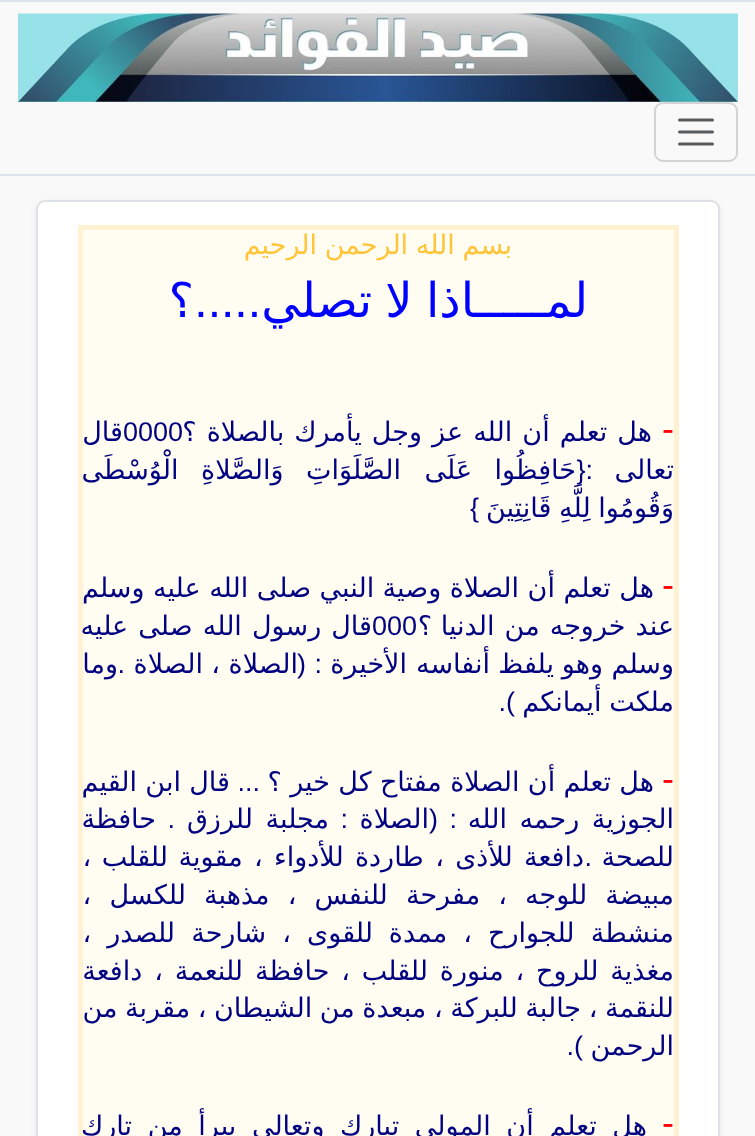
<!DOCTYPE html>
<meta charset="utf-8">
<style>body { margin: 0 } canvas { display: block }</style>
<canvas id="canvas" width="755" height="1136"></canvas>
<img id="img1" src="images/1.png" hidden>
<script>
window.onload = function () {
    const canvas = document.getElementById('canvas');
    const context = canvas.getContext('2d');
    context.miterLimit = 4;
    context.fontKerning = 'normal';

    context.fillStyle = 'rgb(249, 249, 249)';
    context.fillRect(0, 0, 755, 1136);
    context.fillStyle = 'rgb(222, 226, 230)';
    context.fillRect(0, 0, 755, 2);
    context.fillRect(0, 174, 755, 2);
    context.drawImage(document.getElementById('img1'), 18, 13, 720, 89);
    context.beginPath();
    context.roundRect(655, 103, 82, 58, 8);
    context.strokeStyle = 'rgb(212, 212, 212)';
    context.lineWidth = 2;
    context.stroke();
    context.beginPath();
    context.moveTo(679.5, 120);
    context.lineTo(712.5, 120);
    context.moveTo(679.5, 132);
    context.lineTo(712.5, 132);
    context.moveTo(679.5, 144);
    context.lineTo(712.5, 144);
    context.strokeStyle = 'rgb(87, 90, 93)';
    context.lineWidth = 3;
    context.lineCap = 'round';
    context.stroke();
    context.fillStyle = 'rgba(0, 0, 0, 0.07)';
    context.filter = 'blur(3px)';
    context.beginPath();
    context.roundRect(36, 203, 684, 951, 9);
    context.fill();
    context.filter = 'none';
    context.fillStyle = 'rgb(255, 255, 255)';
    context.beginPath();
    context.roundRect(37, 201, 682, 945, 8);
    context.fill();
    context.strokeStyle = 'rgb(222, 226, 230)';
    context.lineWidth = 2;
    context.stroke();
    context.fillStyle = 'rgb(255, 252, 242)';
    context.fillRect(83, 230, 591, 906);
    context.fillStyle = 'rgb(255, 242, 210)';
    context.fillRect(78, 225, 600, 5);
    context.fillRect(674, 225, 5, 911);
    context.fillRect(78, 225, 5, 911);
    context.wordSpacing = '-1px';
    context.direction = 'rtl';
    context.font = '27px DejaVu Sans';
    context.fillStyle = 'rgb(255, 196, 55)';
    context.fillText('بسم الله الرحمن الرحيم', 512, 254);
    context.wordSpacing = '-2px';
    context.font = '48px DejaVu Sans';
    context.fillStyle = 'rgb(0, 0, 255)';
    context.fillText('لمـــــاذا لا تصلي', 588, 317);
    context.wordSpacing = '0px';
    context.font = '48px Liberation Sans';
    context.fillText('.....', 261, 317);
    context.font = '48px DejaVu Sans';
    context.fillText('؟', 194, 317);
    context.direction = 'ltr';
    context.font = '36px Liberation Sans';
    context.fillStyle = 'rgb(255, 0, 0)';
    context.fillText('-', 662, 441);
    context.wordSpacing = '1.5px';
    context.direction = 'rtl';
    context.font = '27px DejaVu Sans';
    context.fillStyle = 'rgb(0, 0, 128)';
    context.fillText('هل تعلم أن الله عز وجل يأمرك بالصلاة ؟', 652, 441);
    context.wordSpacing = '0px';
    context.direction = 'ltr';
    context.font = '27px Liberation Sans';
    context.fillText('0000', 123, 441);
    context.direction = 'rtl';
    context.font = '27px DejaVu Sans';
    context.fillText('قال', 123, 441);
    context.fillText('تعالى', 674, 479);
    context.font = '27px Liberation Sans';
    context.fillText(':{', 593, 479);
    context.wordSpacing = '14px';
    context.font = '27px DejaVu Sans';
    context.fillText('حَافِظُوا عَلَى', 576, 479);
    context.fillText('الصَّلَوَاتِ وَالصَّلاةِ الْوُسْطَى', 401, 479);
    context.wordSpacing = '-1px';
    context.fillText('وَقُومُوا لِلَّهِ قَانِتِينَ', 674, 517);
    context.wordSpacing = '0px';
    context.font = '27px Liberation Sans';
    context.fillText('}', 479, 517);
    context.direction = 'ltr';
    context.font = '36px Liberation Sans';
    context.fillStyle = 'rgb(255, 0, 0)';
    context.fillText('-', 662, 597);
    context.wordSpacing = '-0.1px';
    context.direction = 'rtl';
    context.font = '27px DejaVu Sans';
    context.fillStyle = 'rgb(0, 0, 128)';
    context.fillText('هل تعلم أن الصلاة وصية النبي صلى الله عليه وسلم', 654, 597);
    context.wordSpacing = '1.5px';
    context.fillText('عند خروجه من الدنيا', 674, 635);
    context.wordSpacing = '0px';
    context.fillText('؟', 432, 635);
    context.direction = 'ltr';
    context.font = '27px Liberation Sans';
    context.fillText('000', 372, 635);
    context.wordSpacing = '1.5px';
    context.direction = 'rtl';
    context.font = '27px DejaVu Sans';
    context.fillText('قال رسول الله صلى عليه', 372, 635);
    context.wordSpacing = '0px';
    context.fillText('وسلم', 674, 673);
    context.fillText('وهو', 603, 673);
    context.fillText('يلفظ', 554, 673);
    context.fillText('أنفاسه', 490, 673);
    context.fillText('الأخيرة', 407, 673);
    context.wordSpacing = '1px';
    context.font = '27px Liberation Sans';
    context.fillText(': (', 322, 673);
    context.wordSpacing = '0px';
    context.font = '27px DejaVu Sans';
    context.fillText('الصلاة', 298, 673);
    context.fillText('،', 220, 673);
    context.fillText('الصلاة', 203, 673);
    context.font = '27px Liberation Sans';
    context.fillText('.', 125, 673);
    context.font = '27px DejaVu Sans';
    context.fillText('وما', 118, 673);
    context.wordSpacing = '-1px';
    context.fillText('ملكت أيمانكم', 674, 711);
    context.wordSpacing = '0px';
    context.font = '27px Liberation Sans';
    context.fillText(').', 515, 711);
    context.direction = 'ltr';
    context.font = '36px Liberation Sans';
    context.fillStyle = 'rgb(255, 0, 0)';
    context.fillText('-', 662, 791);
    context.wordSpacing = '-0.25px';
    context.direction = 'rtl';
    context.font = '27px DejaVu Sans';
    context.fillStyle = 'rgb(0, 0, 128)';
    context.fillText('هل تعلم أن الصلاة مفتاح كل خير ؟', 654, 791);
    context.fillText('قال ابن القيم', 230, 791);
    context.wordSpacing = '0px';
    context.font = '27px Liberation Sans';
    context.fillText('...', 260, 791);
    context.wordSpacing = '4px';
    context.font = '27px DejaVu Sans';
    context.fillText('الجوزية رحمه الله', 674, 828);
    context.wordSpacing = '0px';
    context.font = '27px Liberation Sans';
    context.fillText(':', 457, 828);
    context.fillText('(', 438, 828);
    context.font = '27px DejaVu Sans';
    context.fillText('الصلاة', 429, 828);
    context.font = '27px Liberation Sans';
    context.fillText(':', 348, 828);
    context.wordSpacing = '4px';
    context.font = '27px DejaVu Sans';
    context.fillText('مجلبة للرزق', 329, 828);
    context.wordSpacing = '0px';
    context.font = '27px Liberation Sans';
    context.fillText('.', 175, 828);
    context.font = '27px DejaVu Sans';
    context.fillText('حافظة', 156, 828);
    context.fillText('للصحة', 674, 866);
    context.font = '27px Liberation Sans';
    context.fillText('.', 592, 866);
    context.wordSpacing = '2.75px';
    context.font = '27px DejaVu Sans';
    context.fillText('دافعة للأذى ، طاردة للأدواء ، مقوية', 584, 866);
    context.wordSpacing = '2px';
    context.fillText('للقلب ،', 168, 866);
    context.wordSpacing = '9.5px';
    context.fillText('مبيضة للوجه ، مفرحة للنفس ، مذهبة للكسل ،', 674, 904);
    context.wordSpacing = '7.5px';
    context.fillText('منشطة للجوارح ، ممدة', 674, 942);
    context.fillText('للقوى ، شارحة للصدر ،', 373, 942);
    context.wordSpacing = '3.25px';
    context.fillText('مغذية للروح ، منورة للقلب ، حافظة للنعمة ، دافعة', 674, 980);
    context.wordSpacing = '-1px';
    context.fillText('للنقمة ، جالبة للبركة ، مبعدة من الشيطان ، مقربة من', 674, 1017);
    context.wordSpacing = '0px';
    context.fillText('الرحمن', 674, 1055);
    context.font = '27px Liberation Sans';
    context.fillText(').', 583, 1055);
    context.direction = 'ltr';
    context.font = '36px Liberation Sans';
    context.fillStyle = 'rgb(255, 0, 0)';
    context.fillText('-', 662, 1135);
    context.wordSpacing = '7px';
    context.direction = 'rtl';
    context.font = '27px DejaVu Sans';
    context.fillStyle = 'rgb(0, 0, 128)';
    context.fillText('هل تعلم أن المولى تبارك وتعالى يبرأ من تارك', 647, 1135);
};
</script>
